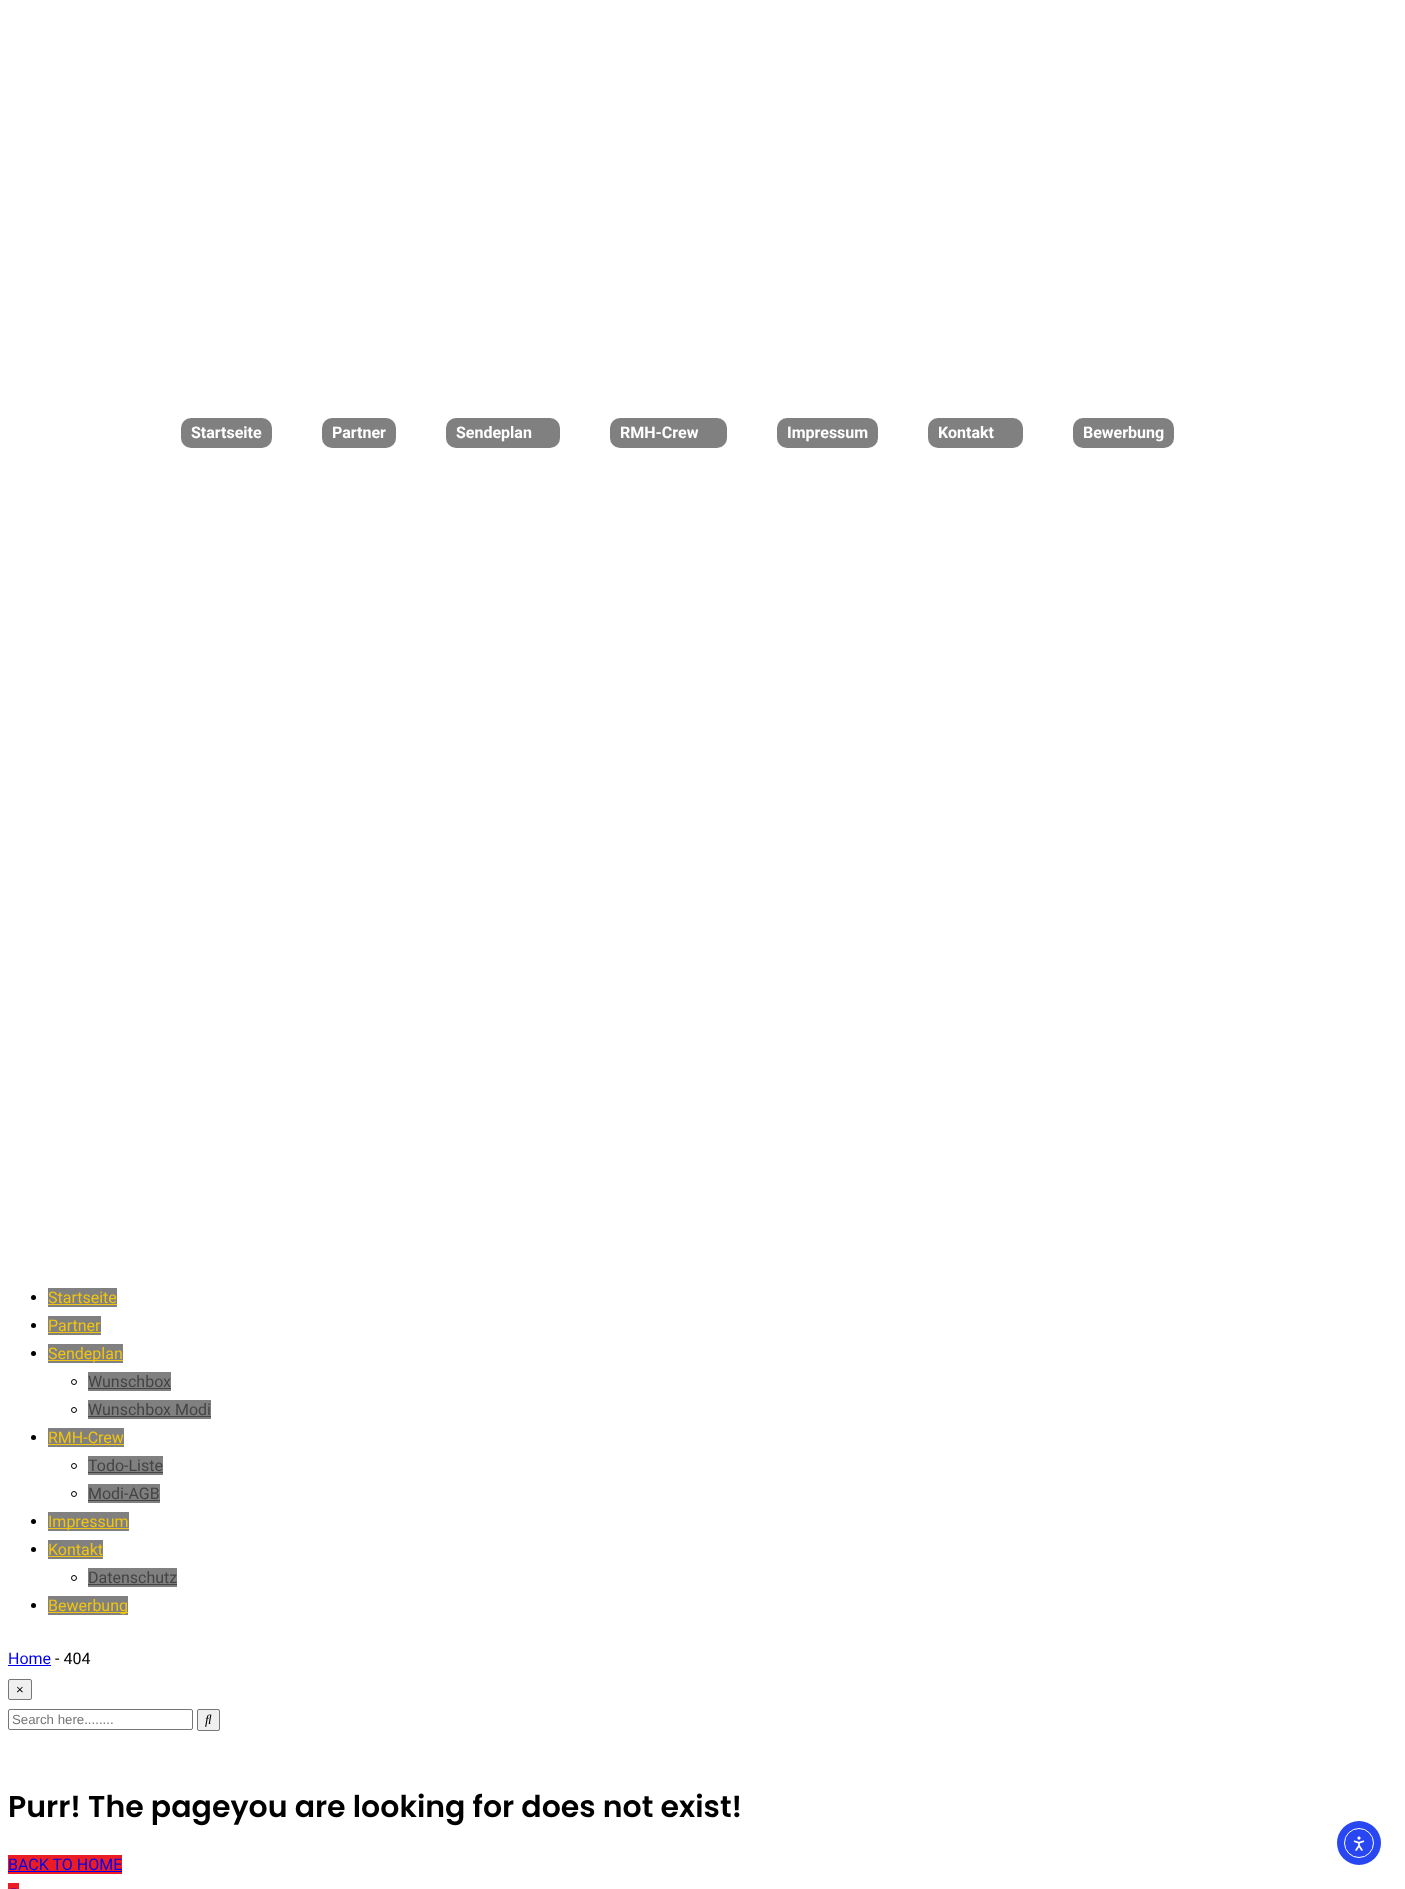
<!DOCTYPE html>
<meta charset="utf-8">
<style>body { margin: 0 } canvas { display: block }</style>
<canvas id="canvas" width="1405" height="1889"></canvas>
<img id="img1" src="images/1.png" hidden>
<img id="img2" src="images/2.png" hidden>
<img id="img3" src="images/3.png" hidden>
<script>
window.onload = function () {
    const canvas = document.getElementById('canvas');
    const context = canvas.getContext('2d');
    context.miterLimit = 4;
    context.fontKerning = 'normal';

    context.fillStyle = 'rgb(255, 255, 255)';
    context.fillRect(0, 0, 1405, 1889);
    context.fillStyle = 'rgb(128, 128, 128)';
    context.beginPath();
    context.roundRect(181, 418, 91, 30, 10);
    context.fill();
    context.beginPath();
    context.roundRect(322, 418, 74, 30, 10);
    context.fill();
    context.beginPath();
    context.roundRect(446, 418, 114, 30, 10);
    context.fill();
    context.beginPath();
    context.roundRect(610, 418, 117, 30, 10);
    context.fill();
    context.beginPath();
    context.roundRect(777, 418, 101, 30, 10);
    context.fill();
    context.beginPath();
    context.roundRect(928, 418, 95, 30, 10);
    context.fill();
    context.beginPath();
    context.roundRect(1073, 418, 101, 30, 10);
    context.fill();
    context.fillStyle = 'rgb(0, 0, 0)';
    context.beginPath();
    context.arc(33.5, 1297.5, 2.5, 0, 2 * Math.PI);
    context.fill();
    context.fillStyle = 'rgb(128, 128, 128)';
    context.fillRect(48, 1288, 69, 19);
    context.fillStyle = 'rgb(241, 196, 15)';
    context.fillRect(48, 1304, 69, 1);
    context.fillStyle = 'rgb(0, 0, 0)';
    context.beginPath();
    context.arc(33.5, 1325.5, 2.5, 0, 2 * Math.PI);
    context.fill();
    context.fillStyle = 'rgb(128, 128, 128)';
    context.fillRect(48, 1316, 53, 19);
    context.fillStyle = 'rgb(241, 196, 15)';
    context.fillRect(48, 1332, 53, 1);
    context.fillStyle = 'rgb(0, 0, 0)';
    context.beginPath();
    context.arc(33.5, 1353.5, 2.5, 0, 2 * Math.PI);
    context.fill();
    context.fillStyle = 'rgb(128, 128, 128)';
    context.fillRect(48, 1344, 75, 19);
    context.fillStyle = 'rgb(241, 196, 15)';
    context.fillRect(48, 1360, 75, 1);
    context.beginPath();
    context.arc(74, 1382, 2.5, 0, 2 * Math.PI);
    context.strokeStyle = 'rgb(0, 0, 0)';
    context.stroke();
    context.fillStyle = 'rgb(128, 128, 128)';
    context.fillRect(88, 1372, 83, 19);
    context.fillStyle = 'rgb(68, 68, 68)';
    context.fillRect(88, 1388, 83, 1);
    context.beginPath();
    context.arc(74, 1410, 2.5, 0, 2 * Math.PI);
    context.stroke();
    context.fillStyle = 'rgb(128, 128, 128)';
    context.fillRect(88, 1400, 123, 19);
    context.fillStyle = 'rgb(68, 68, 68)';
    context.fillRect(88, 1416, 123, 1);
    context.fillStyle = 'rgb(0, 0, 0)';
    context.beginPath();
    context.arc(33.5, 1437.5, 2.5, 0, 2 * Math.PI);
    context.fill();
    context.fillStyle = 'rgb(128, 128, 128)';
    context.fillRect(48, 1428, 76, 19);
    context.fillStyle = 'rgb(241, 196, 15)';
    context.fillRect(48, 1444, 76, 1);
    context.beginPath();
    context.arc(74, 1466, 2.5, 0, 2 * Math.PI);
    context.stroke();
    context.fillStyle = 'rgb(128, 128, 128)';
    context.fillRect(88, 1456, 75, 19);
    context.fillStyle = 'rgb(68, 68, 68)';
    context.fillRect(88, 1472, 75, 1);
    context.beginPath();
    context.arc(74, 1494, 2.5, 0, 2 * Math.PI);
    context.stroke();
    context.fillStyle = 'rgb(128, 128, 128)';
    context.fillRect(88, 1484, 72, 19);
    context.fillStyle = 'rgb(68, 68, 68)';
    context.fillRect(88, 1500, 72, 1);
    context.fillStyle = 'rgb(0, 0, 0)';
    context.beginPath();
    context.arc(33.5, 1521.5, 2.5, 0, 2 * Math.PI);
    context.fill();
    context.fillStyle = 'rgb(128, 128, 128)';
    context.fillRect(48, 1512, 81, 19);
    context.fillStyle = 'rgb(241, 196, 15)';
    context.fillRect(48, 1528, 81, 1);
    context.fillStyle = 'rgb(0, 0, 0)';
    context.beginPath();
    context.arc(33.5, 1549.5, 2.5, 0, 2 * Math.PI);
    context.fill();
    context.fillStyle = 'rgb(128, 128, 128)';
    context.fillRect(48, 1540, 55, 19);
    context.fillStyle = 'rgb(241, 196, 15)';
    context.fillRect(48, 1556, 55, 1);
    context.beginPath();
    context.arc(74, 1578, 2.5, 0, 2 * Math.PI);
    context.stroke();
    context.fillStyle = 'rgb(128, 128, 128)';
    context.fillRect(88, 1568, 89, 19);
    context.fillStyle = 'rgb(68, 68, 68)';
    context.fillRect(88, 1584, 89, 1);
    context.fillStyle = 'rgb(0, 0, 0)';
    context.beginPath();
    context.arc(33.5, 1605.5, 2.5, 0, 2 * Math.PI);
    context.fill();
    context.fillStyle = 'rgb(128, 128, 128)';
    context.fillRect(48, 1596, 80, 19);
    context.fillStyle = 'rgb(241, 196, 15)';
    context.fillRect(48, 1612, 80, 1);
    context.fillStyle = 'rgb(0, 0, 238)';
    context.fillRect(8, 1665, 43, 1);
    context.fillStyle = 'rgb(239, 239, 239)';
    context.beginPath();
    context.roundRect(8.5, 1679.5, 23, 20, 1.5);
    context.fill();
    context.strokeStyle = 'rgb(118, 118, 118)';
    context.stroke();
    context.beginPath();
    context.roundRect(8.5, 1709.5, 184, 20, 1.5);
    context.stroke();
    context.beginPath();
    context.roundRect(197.5, 1709.5, 22, 21, 1.5);
    context.fill();
    context.stroke();
    context.drawImage(document.getElementById('img1'), 205, 1714, 7, 13);
    context.fillStyle = 'rgb(236, 28, 36)';
    context.fillRect(8, 1855, 114, 19);
    context.fillStyle = 'rgb(0, 0, 238)';
    context.fillRect(8, 1871, 114, 1);
    context.fillStyle = 'rgb(40, 71, 243)';
    context.beginPath();
    context.arc(1359, 1843, 22, 0, 2 * Math.PI);
    context.fill();
    context.beginPath();
    context.arc(1359, 1843, 14.5, 0, 2 * Math.PI);
    context.strokeStyle = 'rgb(255, 255, 255)';
    context.stroke();
    context.drawImage(document.getElementById('img2'), 1353, 1836, 12, 15);
    context.fillStyle = 'rgb(236, 28, 36)';
    context.fillRect(8, 1883, 11, 6);
    context.drawImage(document.getElementById('img3'), 10, 1888, 7, 1);
    context.font = 'bold 16px Roboto';
    context.fillStyle = 'rgb(255, 255, 255)';
    context.fillText('Startseite', 191, 438);
    context.fillText('Partner', 332, 438);
    context.fillText('Sendeplan', 456, 438);
    context.fillText('RMH-Crew', 620, 438);
    context.fillText('Impressum', 787, 438);
    context.fillText('Kontakt', 938, 438);
    context.fillText('Bewerbung', 1083, 438);
    context.font = '16px Roboto';
    context.fillStyle = 'rgb(241, 196, 15)';
    context.fillText('Startseite', 48, 1303);
    context.fillText('Partner', 48, 1331);
    context.fillText('Sendeplan', 48, 1359);
    context.fillStyle = 'rgb(68, 68, 68)';
    context.fillText('Wunschbox', 88, 1387);
    context.fillText('Wunschbox Modi', 88, 1415);
    context.fillStyle = 'rgb(241, 196, 15)';
    context.fillText('RMH-Crew', 48, 1443);
    context.fillStyle = 'rgb(68, 68, 68)';
    context.fillText('Todo-Liste', 88, 1471);
    context.fillText('Modi-AGB', 88, 1499);
    context.fillStyle = 'rgb(241, 196, 15)';
    context.fillText('Impressum', 48, 1527);
    context.fillText('Kontakt', 48, 1555);
    context.fillStyle = 'rgb(68, 68, 68)';
    context.fillText('Datenschutz', 88, 1583);
    context.fillStyle = 'rgb(241, 196, 15)';
    context.fillText('Bewerbung', 48, 1611);
    context.fillStyle = 'rgb(0, 0, 238)';
    context.fillText('Home', 8, 1664);
    context.fillStyle = 'rgb(0, 0, 0)';
    context.fillText('- 404', 55, 1664);
    context.font = '13.25px Liberation Sans';
    context.fillText('×', 16, 1694);
    context.fillStyle = 'rgb(117, 117, 117)';
    context.fillText('Search here........', 12, 1724);
    context.font = '600 30px Poppins';
    context.fillStyle = 'rgb(0, 0, 0)';
    context.fillText('Purr! The pageyou are looking for does not exist!', 8, 1817);
    context.font = '16px Roboto';
    context.fillStyle = 'rgb(0, 0, 238)';
    context.fillText('BACK TO HOME', 8, 1870);
};
</script>
